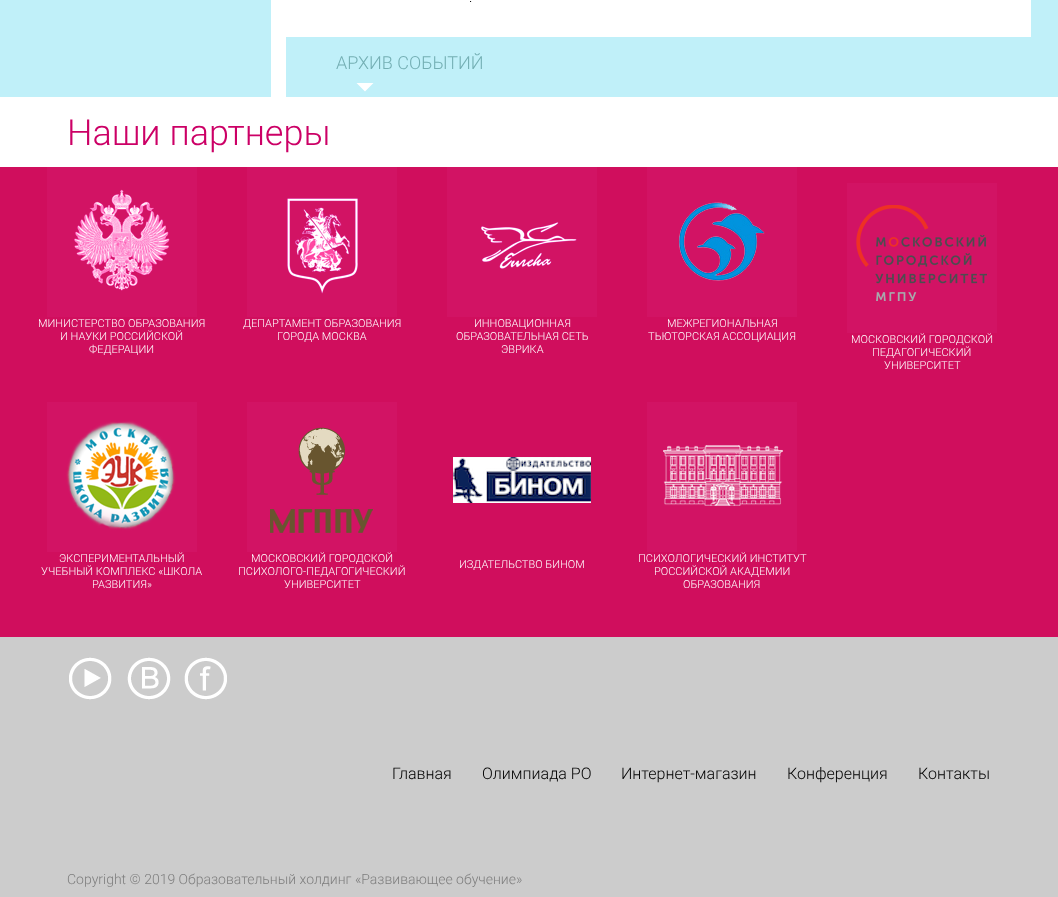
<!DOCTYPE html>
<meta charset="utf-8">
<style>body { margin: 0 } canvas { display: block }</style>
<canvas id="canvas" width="1058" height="897"></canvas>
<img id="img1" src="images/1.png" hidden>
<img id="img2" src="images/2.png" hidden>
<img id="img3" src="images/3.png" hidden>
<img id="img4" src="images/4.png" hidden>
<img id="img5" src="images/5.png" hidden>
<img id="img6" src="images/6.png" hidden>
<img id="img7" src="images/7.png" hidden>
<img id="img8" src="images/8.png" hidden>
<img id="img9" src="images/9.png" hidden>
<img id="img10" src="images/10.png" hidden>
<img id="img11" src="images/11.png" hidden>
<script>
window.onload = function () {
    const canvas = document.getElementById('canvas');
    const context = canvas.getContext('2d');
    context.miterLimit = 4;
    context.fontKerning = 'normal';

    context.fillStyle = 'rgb(255, 255, 255)';
    context.fillRect(0, 0, 1058, 897);
    context.fillStyle = 'rgb(192, 240, 249)';
    context.fillRect(0, 0, 1058, 97);
    context.fillStyle = 'rgb(255, 255, 255)';
    context.fillRect(271, 0, 760, 97);
    context.fillStyle = 'rgb(192, 240, 249)';
    context.fillRect(286, 37, 745, 60);
    context.drawImage(document.getElementById('img1'), 356, 83, 18, 9);
    context.fillStyle = 'rgb(208, 14, 93)';
    context.fillRect(0, 167, 1058, 470);
    context.drawImage(document.getElementById('img2'), 47, 167, 150, 150);
    context.drawImage(document.getElementById('img3'), 247, 167, 150, 150);
    context.drawImage(document.getElementById('img4'), 447, 167, 150, 150);
    context.drawImage(document.getElementById('img5'), 647, 167, 150, 150);
    context.drawImage(document.getElementById('img6'), 847, 183, 150, 150);
    context.drawImage(document.getElementById('img7'), 47, 402, 150, 150);
    context.drawImage(document.getElementById('img8'), 247, 402, 150, 150);
    context.drawImage(document.getElementById('img9'), 453, 457, 138, 46);
    context.drawImage(document.getElementById('img10'), 647, 402, 150, 150);
    context.fillStyle = 'rgb(204, 204, 204)';
    context.fillRect(0, 637, 1058, 260);
    context.drawImage(document.getElementById('img11'), 69, 657, 158, 43);
    context.font = '300 14px Roboto';
    context.fillStyle = 'rgb(0, 0, 0)';
    context.fillText('.', 469, 2);
    context.font = '300 18px Roboto';
    context.fillStyle = 'rgb(116, 175, 180)';
    context.fillText('АРХИВ СОБЫТИЙ', 336, 69);
    context.font = '300 36px Roboto';
    context.fillStyle = 'rgb(204, 0, 102)';
    context.fillText('Наши партнеры', 67, 145);
    context.font = '300 11px Roboto';
    context.fillStyle = 'rgb(255, 255, 255)';
    context.fillText('МИНИСТЕРСТВО ОБРАЗОВАНИЯ', 38, 327);
    context.fillText('И НАУКИ РОССИЙСКОЙ', 60, 340);
    context.fillText('ФЕДЕРАЦИИ', 89, 353);
    context.fillText('ДЕПАРТАМЕНТ ОБРАЗОВАНИЯ', 243, 327);
    context.fillText('ГОРОДА МОСКВА', 277, 340);
    context.fillText('ИННОВАЦИОННАЯ', 474, 327);
    context.fillText('ОБРАЗОВАТЕЛЬНАЯ СЕТЬ', 456, 340);
    context.fillText('ЭВРИКА', 501, 353);
    context.fillText('МЕЖРЕГИОНАЛЬНАЯ', 667, 327);
    context.fillText('ТЬЮТОРСКАЯ АССОЦИАЦИЯ', 648, 340);
    context.fillText('МОСКОВСКИЙ ГОРОДСКОЙ', 851, 343);
    context.fillText('ПЕДАГОГИЧЕСКИЙ', 872, 356);
    context.fillText('УНИВЕРСИТЕТ', 884, 369);
    context.fillText('ЭКСПЕРИМЕНТАЛЬНЫЙ', 59, 562);
    context.fillText('УЧЕБНЫЙ КОМПЛЕКС «ШКОЛА', 41, 575);
    context.fillText('РАЗВИТИЯ»', 92, 588);
    context.fillText('МОСКОВСКИЙ ГОРОДСКОЙ', 251, 562);
    context.fillText('ПСИХОЛОГО-ПЕДАГОГИЧЕСКИЙ', 238, 575);
    context.fillText('УНИВЕРСИТЕТ', 284, 588);
    context.fillText('ИЗДАТЕЛЬСТВО БИНОМ', 459, 568);
    context.fillText('ПСИХОЛОГИЧЕСКИЙ ИНСТИТУТ', 638, 562);
    context.fillText('РОССИЙСКОЙ АКАДЕМИИ', 654, 575);
    context.fillText('ОБРАЗОВАНИЯ', 683, 588);
    context.font = '300 16px Roboto';
    context.fillStyle = 'rgb(0, 0, 0)';
    context.fillText('Главная', 392, 779);
    context.fillText('Олимпиада РО', 482, 779);
    context.fillText('Интернет-магазин', 621, 779);
    context.fillText('Конференция', 787, 779);
    context.fillText('Контакты', 918, 779);
    context.font = '300 14px Roboto';
    context.fillStyle = 'rgb(126, 126, 126)';
    context.fillText('Copyright © 2019 Образовательный холдинг «Развивающее обучение»', 67, 884);
};
</script>
